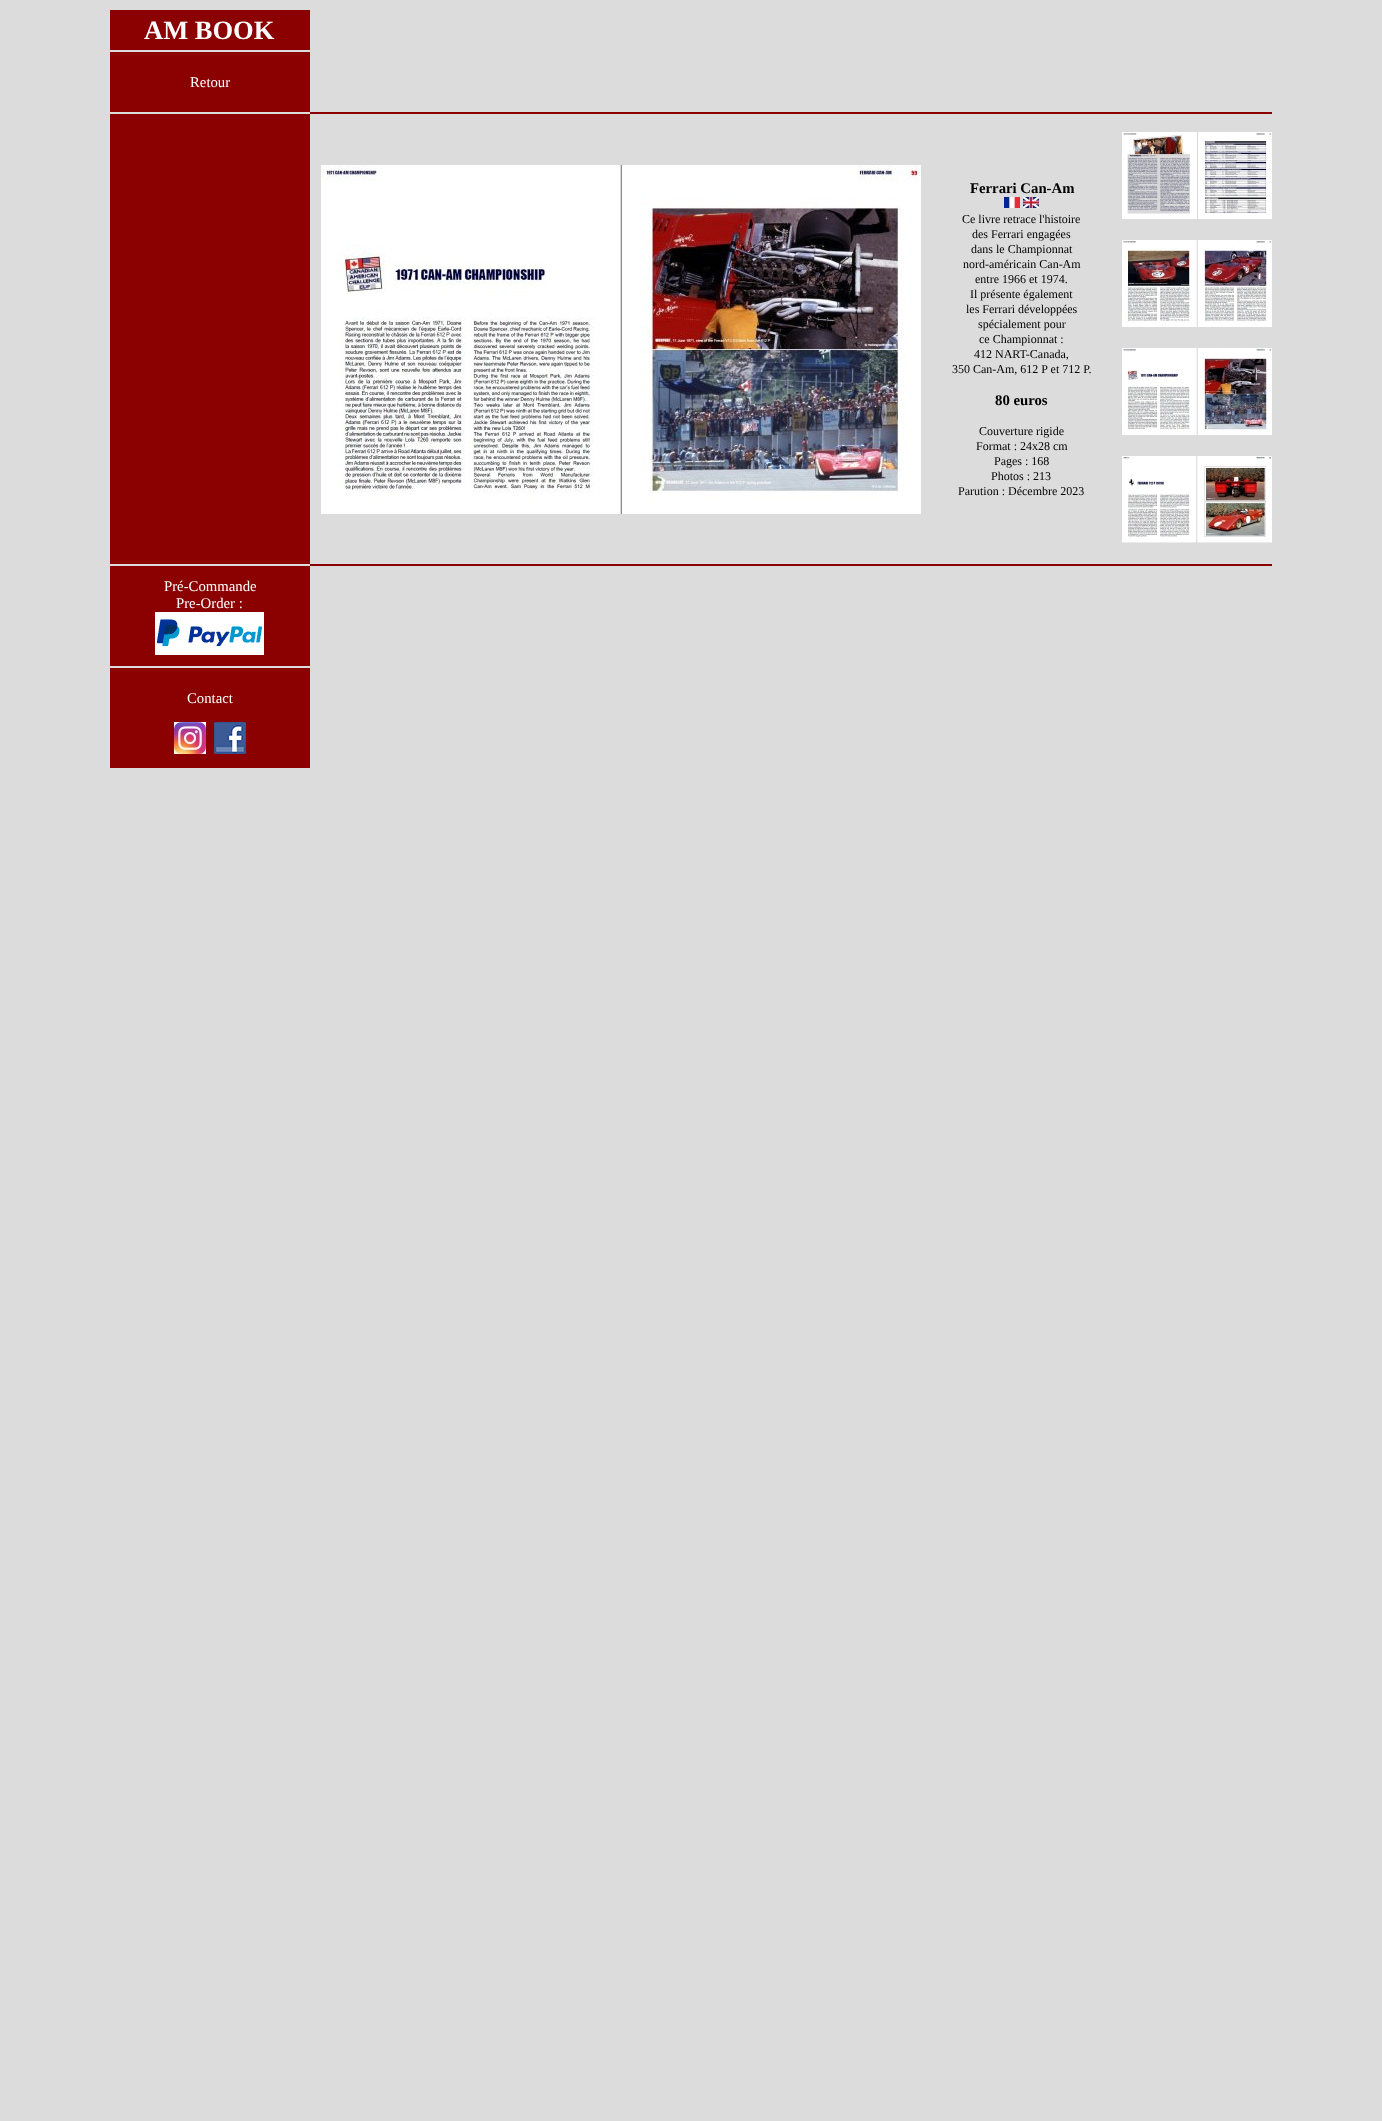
<!DOCTYPE html>
<meta charset="utf-8">
<style>body { margin: 0 } canvas { display: block }</style>
<canvas id="canvas" width="1382" height="2121"></canvas>
<img id="img1" src="images/1.png" hidden>
<img id="img2" src="images/2.png" hidden>
<img id="img3" src="images/3.png" hidden>
<img id="img4" src="images/4.png" hidden>
<img id="img5" src="images/5.png" hidden>
<img id="img6" src="images/6.png" hidden>
<img id="img7" src="images/7.png" hidden>
<img id="img8" src="images/8.png" hidden>
<img id="img9" src="images/9.png" hidden>
<img id="img10" src="images/10.png" hidden>
<script>
window.onload = function () {
    const canvas = document.getElementById('canvas');
    const context = canvas.getContext('2d');
    context.miterLimit = 4;
    context.fontKerning = 'normal';

    context.fillStyle = 'rgb(220, 220, 220)';
    context.fillRect(0, 0, 1382, 2121);
    context.fillStyle = 'rgb(139, 0, 0)';
    context.fillRect(110, 10, 200, 40);
    context.fillRect(110, 52, 200, 60);
    context.fillRect(310, 112, 962, 2);
    context.fillRect(110, 114, 200, 450);
    context.drawImage(document.getElementById('img1'), 321, 165, 600, 349);
    context.drawImage(document.getElementById('img2'), 1004, 197, 16, 11);
    context.drawImage(document.getElementById('img3'), 1023, 197, 16, 11);
    context.drawImage(document.getElementById('img4'), 1122, 132, 150, 87);
    context.drawImage(document.getElementById('img5'), 1122, 240, 150, 87);
    context.drawImage(document.getElementById('img6'), 1122, 348, 150, 87);
    context.drawImage(document.getElementById('img7'), 1122, 456, 150, 87);
    context.fillRect(310, 564, 962, 2);
    context.fillRect(110, 566, 200, 100);
    context.drawImage(document.getElementById('img8'), 155, 612, 109, 43);
    context.fillRect(110, 668, 200, 100);
    context.drawImage(document.getElementById('img9'), 174, 722, 32, 32);
    context.drawImage(document.getElementById('img10'), 214, 722, 32, 32);
    context.font = 'bold 26.5px Liberation Serif';
    context.fillStyle = 'rgb(255, 255, 255)';
    context.fillText('AM BOOK', 144, 39);
    context.font = '14.75px Liberation Serif';
    context.fillText('Retour', 190, 87);
    context.font = 'bold 14.75px Liberation Serif';
    context.fillStyle = 'rgb(0, 0, 0)';
    context.fillText('Ferrari Can-Am', 970, 193);
    context.font = '12px Liberation Serif';
    context.fillText('Ce livre retrace l\'histoire', 962, 223);
    context.fillText('des Ferrari engagées', 972, 238);
    context.fillText('dans le Championnat', 971, 253);
    context.fillText('nord-américain Can-Am', 963, 268);
    context.fillText('entre 1966 et 1974.', 975, 283);
    context.fillText('Il présente également', 970, 298);
    context.fillText('les Ferrari développées', 966, 313);
    context.fillText('spécialement pour', 978, 328);
    context.fillText('ce Championnat :', 979, 343);
    context.fillText('412 NART-Canada,', 974, 358);
    context.fillText('350 Can-Am, 612 P et 712 P.', 952, 373);
    context.font = 'bold 14.75px Liberation Serif';
    context.fillText('80 euros', 995, 405);
    context.font = '12px Liberation Serif';
    context.fillText('Couverture rigide', 979, 435);
    context.fillText('Format : 24x28 cm', 976, 450);
    context.fillText('Pages : 168', 994, 465);
    context.fillText('Photos : 213', 991, 480);
    context.fillText('Parution : Décembre 2023', 958, 495);
    context.font = '14.75px Liberation Serif';
    context.fillStyle = 'rgb(255, 255, 255)';
    context.fillText('Pré-Commande', 164, 591);
    context.fillText('Pre-Order :', 176, 608);
    context.fillText('Contact', 187, 703);
};
</script>
